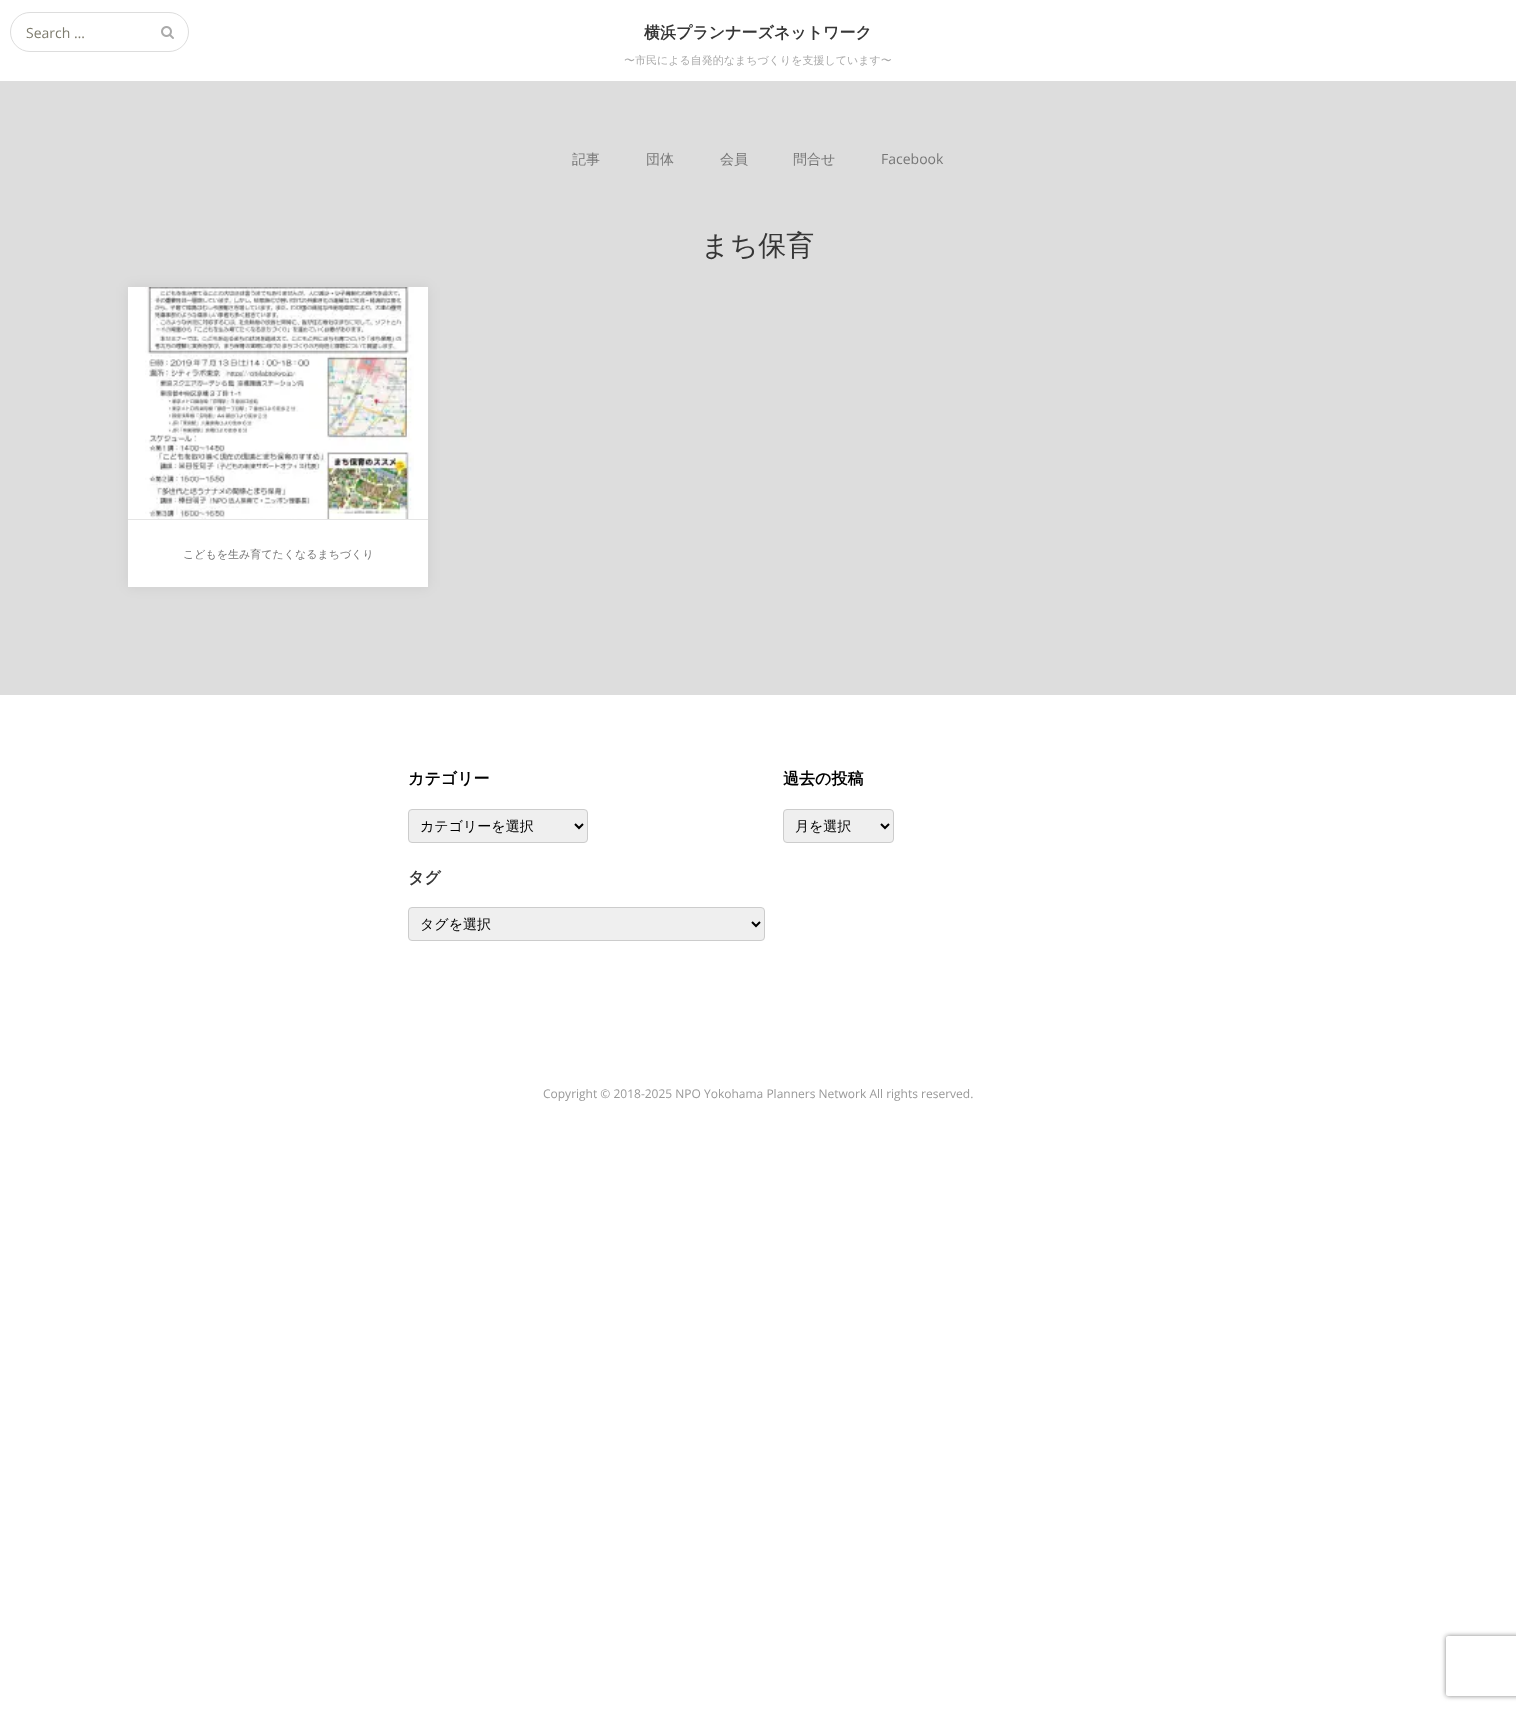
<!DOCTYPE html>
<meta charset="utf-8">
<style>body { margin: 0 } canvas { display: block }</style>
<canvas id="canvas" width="1516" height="1710"></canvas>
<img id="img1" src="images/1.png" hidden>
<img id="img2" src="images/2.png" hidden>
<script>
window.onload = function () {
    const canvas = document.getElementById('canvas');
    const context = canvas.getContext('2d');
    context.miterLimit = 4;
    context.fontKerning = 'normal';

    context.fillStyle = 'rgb(255, 255, 255)';
    context.fillRect(0, 0, 1516, 1710);
    context.beginPath();
    context.roundRect(10.5, 12.5, 178, 39, 19.5);
    context.strokeStyle = 'rgb(221, 221, 221)';
    context.stroke();
    context.drawImage(document.getElementById('img1'), 161, 26, 13, 13);
    context.fillStyle = 'rgb(221, 221, 221)';
    context.fillRect(0, 81, 1516, 614);
    context.fillStyle = 'rgba(0, 0, 0, 0.07)';
    context.filter = 'blur(6.5px)';
    context.beginPath();
    context.rect(128, 287, 300, 300);
    context.fill();
    context.filter = 'none';
    context.fillStyle = 'rgb(255, 255, 255)';
    context.fillRect(128, 287, 300, 232);
    context.drawImage(document.getElementById('img2'), 145, 287, 269, 232);
    context.fillRect(128, 520, 300, 67);
    context.fillStyle = 'rgb(229, 229, 229)';
    context.fillRect(128, 519, 300, 1);
    context.fillStyle = 'rgb(239, 239, 239)';
    context.beginPath();
    context.roundRect(408.5, 809.5, 179, 33, 3.5);
    context.fill();
    context.strokeStyle = 'rgb(204, 204, 204)';
    context.stroke();
    context.beginPath();
    context.moveTo(575, 824);
    context.lineTo(579, 828);
    context.lineTo(583, 824);
    context.strokeStyle = 'rgb(0, 0, 0)';
    context.lineWidth = 2;
    context.stroke();
    context.beginPath();
    context.roundRect(783.5, 809.5, 110, 33, 3.5);
    context.fill();
    context.strokeStyle = 'rgb(204, 204, 204)';
    context.lineWidth = 1;
    context.stroke();
    context.beginPath();
    context.moveTo(881, 824);
    context.lineTo(885, 828);
    context.lineTo(889, 824);
    context.strokeStyle = 'rgb(0, 0, 0)';
    context.lineWidth = 2;
    context.stroke();
    context.beginPath();
    context.roundRect(408.5, 907.5, 356, 33, 3.5);
    context.fill();
    context.strokeStyle = 'rgb(204, 204, 204)';
    context.lineWidth = 1;
    context.stroke();
    context.beginPath();
    context.moveTo(752, 922);
    context.lineTo(756, 926);
    context.lineTo(760, 922);
    context.strokeStyle = 'rgb(0, 0, 0)';
    context.lineWidth = 2;
    context.stroke();
    context.save();
    context.beginPath();
    context.moveTo(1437, 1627);
    context.lineTo(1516, 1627);
    context.lineTo(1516, 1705);
    context.lineTo(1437, 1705);
    context.closePath();
    context.moveTo(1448, 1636);
    context.lineTo(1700, 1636);
    context.bezierCurveTo(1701, 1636, 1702, 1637, 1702, 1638);
    context.lineTo(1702, 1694);
    context.bezierCurveTo(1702, 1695, 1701, 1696, 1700, 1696);
    context.lineTo(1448, 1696);
    context.bezierCurveTo(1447, 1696, 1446, 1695, 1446, 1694);
    context.lineTo(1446, 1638);
    context.bezierCurveTo(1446, 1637, 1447, 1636, 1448, 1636);
    context.closePath();
    context.clip('evenodd');
    context.fillStyle = 'rgb(128, 128, 128)';
    context.filter = 'blur(2.5px)';
    context.beginPath();
    context.roundRect(1446, 1636, 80, 60, 2);
    context.fill();
    context.filter = 'none';
    context.restore();
    context.font = '14px Open Sans';
    context.fillStyle = 'rgb(125, 123, 109)';
    context.fillText('Search …', 26, 38);
    context.font = 'bold 16px WenQuanYi Zen Hei';
    context.fillStyle = 'rgb(54, 54, 54)';
    context.fillText('横浜プランナーズネットワーク', 644, 38);
    context.font = '500 11px WenQuanYi Zen Hei';
    context.fillStyle = 'rgb(170, 170, 170)';
    context.fillText('〜市民による自発的なまちづくりを支援しています〜', 624, 64);
    context.font = '500 14px WenQuanYi Zen Hei';
    context.fillStyle = 'rgb(119, 119, 119)';
    context.fillText('記事', 572, 164);
    context.fillText('団体', 646, 164);
    context.fillText('会員', 720, 164);
    context.fillText('問合せ', 793, 164);
    context.font = '14px Open Sans';
    context.fillText('Facebook', 881, 164);
    context.font = '500 28px WenQuanYi Zen Hei';
    context.fillStyle = 'rgb(54, 54, 54)';
    context.fillText('まち保育', 701, 255);
    context.font = '500 11px WenQuanYi Zen Hei';
    context.fillStyle = 'rgb(119, 119, 119)';
    context.fillText('こどもを生み育てたくなるまちづくり', 183, 558);
    context.font = 'bold 16px WenQuanYi Zen Hei';
    context.fillStyle = 'rgb(0, 0, 0)';
    context.fillText('カテゴリー', 408, 784);
    context.font = '500 14px WenQuanYi Zen Hei';
    context.fillText('カテゴリーを選択', 420, 831);
    context.font = 'bold 16px WenQuanYi Zen Hei';
    context.fillText('過去の投稿', 783, 784);
    context.font = '500 14px WenQuanYi Zen Hei';
    context.fillText('月を選択', 795, 831);
    context.font = 'bold 16px WenQuanYi Zen Hei';
    context.fillStyle = 'rgb(54, 54, 54)';
    context.fillText('タグ', 408, 883);
    context.font = '500 14px WenQuanYi Zen Hei';
    context.fillStyle = 'rgb(0, 0, 0)';
    context.fillText('タグを選択', 420, 929);
    context.font = '12px Open Sans';
    context.fillStyle = 'rgb(153, 153, 153)';
    context.fillText('Copyright © 2018-2025 NPO Yokohama Planners Network All rights reserved.', 543, 1098);
};
</script>
